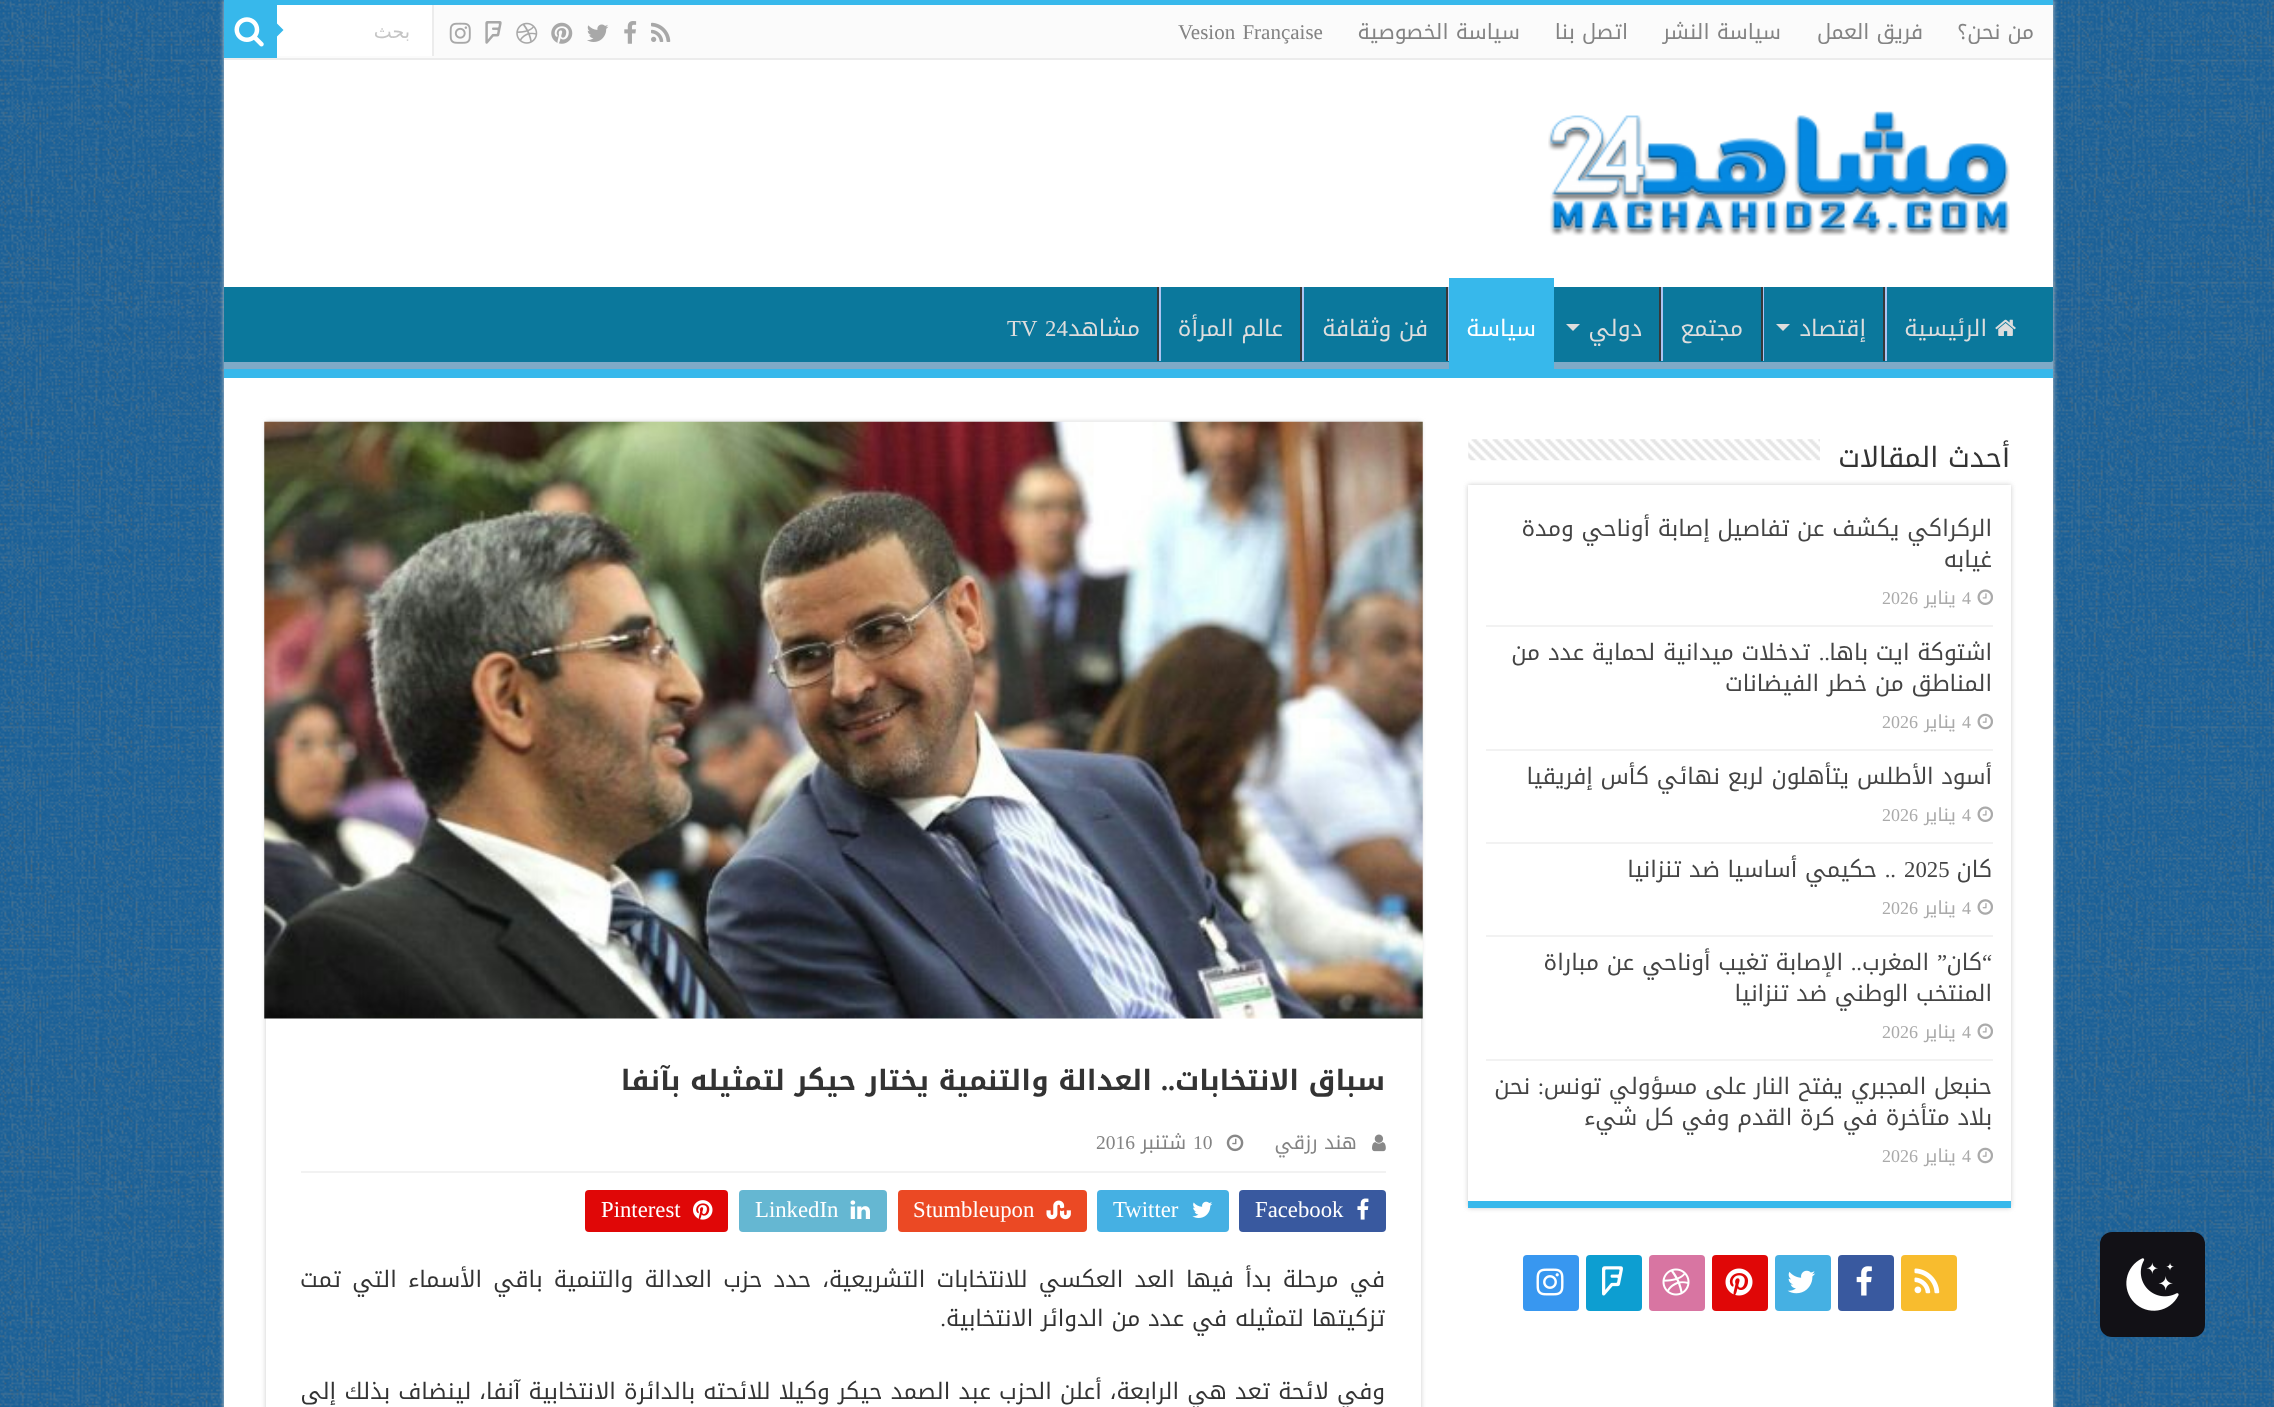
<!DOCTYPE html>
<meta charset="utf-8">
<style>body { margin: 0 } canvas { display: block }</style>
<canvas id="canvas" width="2274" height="1407"></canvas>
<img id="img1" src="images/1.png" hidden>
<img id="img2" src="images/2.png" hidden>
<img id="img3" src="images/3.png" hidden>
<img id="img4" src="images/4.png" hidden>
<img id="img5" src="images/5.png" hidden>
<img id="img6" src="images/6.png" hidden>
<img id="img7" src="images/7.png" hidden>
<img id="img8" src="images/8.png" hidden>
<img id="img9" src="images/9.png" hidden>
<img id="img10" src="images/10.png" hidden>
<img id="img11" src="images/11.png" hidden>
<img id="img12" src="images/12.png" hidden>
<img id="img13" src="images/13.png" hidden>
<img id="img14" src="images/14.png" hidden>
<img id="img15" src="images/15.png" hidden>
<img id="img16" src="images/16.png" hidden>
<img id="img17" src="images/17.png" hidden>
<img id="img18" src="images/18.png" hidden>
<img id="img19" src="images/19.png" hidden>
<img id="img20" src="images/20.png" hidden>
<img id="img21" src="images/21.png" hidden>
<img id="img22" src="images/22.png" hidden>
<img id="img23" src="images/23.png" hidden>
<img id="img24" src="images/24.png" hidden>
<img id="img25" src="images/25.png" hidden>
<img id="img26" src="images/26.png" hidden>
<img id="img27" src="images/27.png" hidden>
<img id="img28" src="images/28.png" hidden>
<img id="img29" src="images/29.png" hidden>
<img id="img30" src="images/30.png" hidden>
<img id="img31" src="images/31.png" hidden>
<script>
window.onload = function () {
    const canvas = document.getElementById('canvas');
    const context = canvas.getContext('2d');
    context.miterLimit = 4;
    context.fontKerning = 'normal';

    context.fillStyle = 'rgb(18, 91, 150)';
    context.fillRect(0, 0, 2274, 1407);
    context.drawImage(document.getElementById('img1'), 0, 0, 2274, 1407);
    context.fillStyle = 'rgb(18, 17, 22)';
    context.beginPath();
    context.roundRect(2100, 1232, 105, 105, 12);
    context.fill();
    context.drawImage(document.getElementById('img2'), 2126, 1258, 53, 53);
    context.fillStyle = 'rgb(202, 202, 202)';
    context.filter = 'blur(2.5px)';
    context.beginPath();
    context.rect(224, 0, 1829, 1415);
    context.fill();
    context.filter = 'none';
    context.fillStyle = 'rgb(255, 255, 255)';
    context.fillRect(224, 60, 1829, 1347);
    context.fillStyle = 'rgb(55, 184, 235)';
    context.fillRect(224, 0, 1829, 5);
    context.fillStyle = 'rgb(251, 251, 251)';
    context.fillRect(277, 5, 1776, 53);
    context.fillStyle = 'rgb(236, 236, 236)';
    context.fillRect(224, 58, 1829, 2);
    context.drawImage(document.getElementById('img3'), 651, 22, 20, 20);
    context.drawImage(document.getElementById('img4'), 624, 21, 13, 23);
    context.drawImage(document.getElementById('img5'), 587, 24, 22, 18);
    context.drawImage(document.getElementById('img6'), 551, 22, 22, 22);
    context.drawImage(document.getElementById('img7'), 516, 22, 22, 22);
    context.drawImage(document.getElementById('img8'), 485, 21, 17, 23);
    context.drawImage(document.getElementById('img9'), 449, 22, 22, 22);
    context.fillStyle = 'rgb(255, 255, 255)';
    context.fillRect(277, 5, 155, 51);
    context.fillStyle = 'rgb(236, 236, 236)';
    context.fillRect(432, 5, 2, 51);
    context.fillStyle = 'rgb(55, 184, 235)';
    context.fillRect(224, 5, 53, 53);
    context.drawImage(document.getElementById('img10'), 234, 17, 30, 30);
    context.beginPath();
    context.moveTo(276.5, 37);
    context.lineTo(276.5, 23);
    context.lineTo(283.5, 30);
    context.closePath();
    context.fill();
    context.drawImage(document.getElementById('img11'), 1548, 111, 462, 125);
    context.fillStyle = 'rgb(11, 120, 156)';
    context.fillRect(224, 287, 1829, 75);
    context.save();
    context.beginPath();
    context.rect(224, 287, 1829, 82);
    context.clip();
    context.fillStyle = 'rgb(127, 170, 199)';
    context.beginPath();
    context.moveTo(51, 114);
    context.lineTo(2226, 114);
    context.lineTo(2226, 542);
    context.lineTo(51, 542);
    context.closePath();
    context.moveTo(222, 276);
    context.lineTo(2051, 276);
    context.bezierCurveTo(2052, 276, 2053, 277, 2053, 278);
    context.lineTo(2053, 360);
    context.bezierCurveTo(2053, 361, 2052, 362, 2051, 362);
    context.lineTo(222, 362);
    context.bezierCurveTo(221, 362, 220, 361, 220, 360);
    context.lineTo(220, 278);
    context.bezierCurveTo(220, 277, 221, 276, 222, 276);
    context.closePath();
    context.fill('evenodd');
    context.restore();
    context.fillStyle = 'rgb(55, 184, 235)';
    context.fillRect(224, 369, 1829, 9);
    context.drawImage(document.getElementById('img12'), 1995, 319, 21, 17);
    context.fillStyle = 'rgb(172, 196, 242)';
    context.fillRect(1885, 287, 2, 74);
    context.fillStyle = 'rgb(56, 56, 56)';
    context.fillRect(1883, 287, 2, 74);
    context.fillStyle = 'rgb(221, 221, 221)';
    context.beginPath();
    context.moveTo(1776, 324);
    context.lineTo(1790, 324);
    context.lineTo(1783, 331);
    context.closePath();
    context.fill();
    context.fillStyle = 'rgb(172, 196, 242)';
    context.fillRect(1763, 287, 1, 74);
    context.fillStyle = 'rgb(56, 56, 56)';
    context.fillRect(1761, 287, 2, 74);
    context.fillStyle = 'rgb(172, 196, 242)';
    context.fillRect(1661, 287, 2, 74);
    context.fillStyle = 'rgb(56, 56, 56)';
    context.fillRect(1659, 287, 2, 74);
    context.fillStyle = 'rgb(221, 221, 221)';
    context.beginPath();
    context.moveTo(1566, 324);
    context.lineTo(1580, 324);
    context.lineTo(1573, 331);
    context.closePath();
    context.fill();
    context.fillStyle = 'rgb(55, 184, 235)';
    context.fillRect(1449, 278, 105, 91);
    context.fillStyle = 'rgb(172, 196, 242)';
    context.fillRect(1448, 287, 1, 74);
    context.fillStyle = 'rgb(56, 56, 56)';
    context.fillRect(1446, 287, 2, 74);
    context.fillStyle = 'rgb(172, 196, 242)';
    context.fillRect(1302, 287, 2, 74);
    context.fillStyle = 'rgb(56, 56, 56)';
    context.fillRect(1300, 287, 2, 74);
    context.fillStyle = 'rgb(172, 196, 242)';
    context.fillRect(1159, 287, 2, 74);
    context.fillStyle = 'rgb(56, 56, 56)';
    context.fillRect(1157, 287, 2, 74);
    context.drawImage(document.getElementById('img13'), 1468, 439, 352, 22);
    context.fillStyle = 'rgb(202, 202, 202)';
    context.filter = 'blur(2.5px)';
    context.beginPath();
    context.rect(1468, 485, 543, 723);
    context.fill();
    context.filter = 'none';
    context.fillStyle = 'rgb(255, 255, 255)';
    context.fillRect(1468, 485, 543, 716);
    context.fillStyle = 'rgb(55, 184, 235)';
    context.fillRect(1468, 1201, 543, 7);
    context.fillStyle = 'rgb(242, 242, 242)';
    context.fillRect(1486, 625, 507, 2);
    context.drawImage(document.getElementById('img14'), 1977, 589, 16, 16);
    context.fillRect(1486, 749, 507, 2);
    context.drawImage(document.getElementById('img15'), 1977, 713, 16, 17);
    context.fillRect(1486, 842, 507, 2);
    context.drawImage(document.getElementById('img14'), 1977, 806, 16, 16);
    context.fillRect(1486, 935, 507, 2);
    context.drawImage(document.getElementById('img16'), 1977, 899, 16, 16);
    context.fillRect(1486, 1059, 507, 2);
    context.drawImage(document.getElementById('img14'), 1977, 1023, 16, 16);
    context.drawImage(document.getElementById('img15'), 1977, 1147, 16, 17);
    context.fillStyle = 'rgb(248, 188, 46)';
    context.beginPath();
    context.roundRect(1901, 1255, 56, 56, 4);
    context.fill();
    context.drawImage(document.getElementById('img17'), 1914, 1268, 26, 26);
    context.fillStyle = 'rgb(57, 89, 159)';
    context.beginPath();
    context.roundRect(1838, 1255, 56, 56, 4);
    context.fill();
    context.drawImage(document.getElementById('img18'), 1856, 1266, 16, 30);
    context.fillStyle = 'rgb(69, 176, 227)';
    context.beginPath();
    context.roundRect(1775, 1255, 56, 56, 4);
    context.fill();
    context.drawImage(document.getElementById('img19'), 1787, 1270, 29, 24);
    context.fillStyle = 'rgb(224, 7, 7)';
    context.beginPath();
    context.roundRect(1712, 1255, 56, 56, 4);
    context.fill();
    context.drawImage(document.getElementById('img20'), 1725, 1268, 28, 28);
    context.fillStyle = 'rgb(216, 117, 162)';
    context.beginPath();
    context.roundRect(1649, 1255, 56, 56, 4);
    context.fill();
    context.drawImage(document.getElementById('img21'), 1662, 1268, 28, 28);
    context.fillStyle = 'rgb(13, 158, 209)';
    context.beginPath();
    context.roundRect(1586, 1255, 56, 56, 4);
    context.fill();
    context.drawImage(document.getElementById('img22'), 1602, 1266, 21, 30);
    context.fillStyle = 'rgb(56, 151, 240)';
    context.beginPath();
    context.roundRect(1523, 1255, 56, 56, 4);
    context.fill();
    context.drawImage(document.getElementById('img23'), 1536, 1268, 28, 28);
    context.save();
    context.beginPath();
    context.moveTo(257, 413);
    context.lineTo(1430, 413);
    context.lineTo(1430, 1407);
    context.lineTo(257, 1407);
    context.closePath();
    context.moveTo(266, 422);
    context.lineTo(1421, 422);
    context.lineTo(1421, 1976);
    context.lineTo(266, 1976);
    context.closePath();
    context.clip('evenodd');
    context.fillStyle = 'rgb(202, 202, 202)';
    context.filter = 'blur(2.5px)';
    context.beginPath();
    context.rect(266, 422, 1155, 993);
    context.fill();
    context.filter = 'none';
    context.restore();
    context.drawImage(document.getElementById('img24'), 264, 421, 1159, 598);
    context.fillStyle = 'rgb(242, 242, 242)';
    context.fillRect(301, 1171, 1085, 2);
    context.drawImage(document.getElementById('img25'), 1372, 1134, 14, 18);
    context.drawImage(document.getElementById('img26'), 1226, 1134, 18, 18);
    context.fillStyle = 'rgb(57, 89, 159)';
    context.beginPath();
    context.roundRect(1239, 1190, 147, 42, 4);
    context.fill();
    context.drawImage(document.getElementById('img27'), 1357, 1198, 12, 22);
    context.fillStyle = 'rgb(69, 176, 227)';
    context.beginPath();
    context.roundRect(1097, 1190, 132, 42, 4);
    context.fill();
    context.drawImage(document.getElementById('img28'), 1192, 1201, 21, 17);
    context.fillStyle = 'rgb(235, 73, 36)';
    context.beginPath();
    context.roundRect(898, 1190, 189, 42, 4);
    context.fill();
    context.drawImage(document.getElementById('img29'), 1046, 1200, 25, 20);
    context.fillStyle = 'rgb(101, 183, 210)';
    context.beginPath();
    context.roundRect(739, 1190, 148, 42, 4);
    context.fill();
    context.drawImage(document.getElementById('img30'), 850, 1200, 20, 19);
    context.fillStyle = 'rgb(224, 7, 7)';
    context.beginPath();
    context.roundRect(585, 1190, 143, 42, 4);
    context.fill();
    context.drawImage(document.getElementById('img31'), 693, 1200, 20, 20);
    context.direction = 'rtl';
    context.font = '21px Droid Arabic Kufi';
    context.fillStyle = 'rgb(131, 131, 131)';
    context.fillText('من نحن؟', 2034, 39);
    context.fillText('فريق العمل', 1923, 39);
    context.fillText('سياسة النشر', 1781, 39);
    context.fillText('اتصل بنا', 1628, 39);
    context.fillText('سياسة الخصوصية', 1520, 39);
    context.wordSpacing = '2px';
    context.direction = 'ltr';
    context.font = '21px Liberation Serif';
    context.fillText('Vesion Française', 1178, 39);
    context.wordSpacing = '0px';
    context.direction = 'rtl';
    context.font = '19px DejaVu Sans';
    context.fillStyle = 'rgb(197, 197, 197)';
    context.fillText('بحث', 410, 38);
    context.font = '22.75px Droid Arabic Kufi';
    context.fillStyle = 'rgb(221, 221, 221)';
    context.fillText('الرئيسية', 1987, 336);
    context.fillText('إقتصاد', 1866, 336);
    context.fillText('مجتمع', 1743, 336);
    context.fillText('دولي', 1642, 336);
    context.fillStyle = 'rgb(255, 255, 255)';
    context.fillText('سياسة', 1536, 336);
    context.fillStyle = 'rgb(221, 221, 221)';
    context.fillText('فن وثقافة', 1428, 336);
    context.fillText('عالم المرأة', 1283, 336);
    context.fillText('مشاهد', 1140, 336);
    context.direction = 'ltr';
    context.font = '22.75px Liberation Serif';
    context.fillText('24', 1045, 336);
    context.fillText('TV', 1007, 336);
    context.direction = 'rtl';
    context.font = '28px Droid Arabic Kufi';
    context.fillStyle = 'rgb(51, 51, 51)';
    context.fillText('أحدث المقالات', 2010, 467);
    context.font = '22.75px Droid Arabic Kufi';
    context.fillStyle = 'rgb(68, 68, 68)';
    context.fillText('الركراكي يكشف عن تفاصيل إصابة أوناحي ومدة', 1992, 536);
    context.fillText('غيابه', 1992, 567);
    context.direction = 'ltr';
    context.font = '18px Liberation Serif';
    context.fillStyle = 'rgb(170, 170, 170)';
    context.fillText('4', 1962, 604);
    context.direction = 'rtl';
    context.font = '18px Droid Arabic Kufi';
    context.fillText('يناير', 1956, 604);
    context.direction = 'ltr';
    context.font = '18px Liberation Serif';
    context.fillText('2026', 1882, 604);
    context.direction = 'rtl';
    context.font = '22.75px Droid Arabic Kufi';
    context.fillStyle = 'rgb(68, 68, 68)';
    context.fillText('اشتوكة ايت باها', 1992, 660);
    context.font = '22.75px Liberation Serif';
    context.fillText('..', 1830, 660);
    context.font = '22.75px Droid Arabic Kufi';
    context.fillText('تدخلات ميدانية لحماية عدد من', 1810, 660);
    context.fillText('المناطق من خطر الفيضانات', 1992, 691);
    context.direction = 'ltr';
    context.font = '18px Liberation Serif';
    context.fillStyle = 'rgb(170, 170, 170)';
    context.fillText('4', 1962, 728);
    context.direction = 'rtl';
    context.font = '18px Droid Arabic Kufi';
    context.fillText('يناير', 1956, 728);
    context.direction = 'ltr';
    context.font = '18px Liberation Serif';
    context.fillText('2026', 1882, 728);
    context.direction = 'rtl';
    context.font = '22.75px Droid Arabic Kufi';
    context.fillStyle = 'rgb(68, 68, 68)';
    context.fillText('أسود الأطلس يتأهلون لربع نهائي كأس إفريقيا', 1992, 784);
    context.direction = 'ltr';
    context.font = '18px Liberation Serif';
    context.fillStyle = 'rgb(170, 170, 170)';
    context.fillText('4', 1962, 821);
    context.direction = 'rtl';
    context.font = '18px Droid Arabic Kufi';
    context.fillText('يناير', 1956, 821);
    context.direction = 'ltr';
    context.font = '18px Liberation Serif';
    context.fillText('2026', 1882, 821);
    context.direction = 'rtl';
    context.font = '22.75px Droid Arabic Kufi';
    context.fillStyle = 'rgb(68, 68, 68)';
    context.fillText('كان', 1992, 877);
    context.direction = 'ltr';
    context.font = '22.75px Liberation Serif';
    context.fillText('2025', 1904, 877);
    context.direction = 'rtl';
    context.fillText('..', 1896, 877);
    context.font = '22.75px Droid Arabic Kufi';
    context.fillText('حكيمي أساسيا ضد تنزانيا', 1877, 877);
    context.direction = 'ltr';
    context.font = '18px Liberation Serif';
    context.fillStyle = 'rgb(170, 170, 170)';
    context.fillText('4', 1962, 914);
    context.direction = 'rtl';
    context.font = '18px Droid Arabic Kufi';
    context.fillText('يناير', 1956, 914);
    context.direction = 'ltr';
    context.font = '18px Liberation Serif';
    context.fillText('2026', 1882, 914);
    context.direction = 'rtl';
    context.font = '22.75px Liberation Serif';
    context.fillStyle = 'rgb(68, 68, 68)';
    context.fillText('“', 1992, 970);
    context.font = '22.75px Droid Arabic Kufi';
    context.fillText('كان', 1982, 970);
    context.font = '22.75px Liberation Serif';
    context.fillText('”', 1947, 970);
    context.font = '22.75px Droid Arabic Kufi';
    context.fillText('المغرب', 1929, 970);
    context.fillText('الإصابة تغيب أوناحي عن مباراة', 1843, 970);
    context.font = '22.75px Liberation Serif';
    context.fillText('..', 1862, 970);
    context.font = '22.75px Droid Arabic Kufi';
    context.fillText('المنتخب الوطني ضد تنزانيا', 1992, 1001);
    context.direction = 'ltr';
    context.font = '18px Liberation Serif';
    context.fillStyle = 'rgb(170, 170, 170)';
    context.fillText('4', 1962, 1038);
    context.direction = 'rtl';
    context.font = '18px Droid Arabic Kufi';
    context.fillText('يناير', 1956, 1038);
    context.direction = 'ltr';
    context.font = '18px Liberation Serif';
    context.fillText('2026', 1882, 1038);
    context.direction = 'rtl';
    context.font = '22.75px Droid Arabic Kufi';
    context.fillStyle = 'rgb(68, 68, 68)';
    context.fillText('حنبعل المجبري يفتح النار على مسؤولي تونس', 1992, 1094);
    context.font = '22.75px Liberation Serif';
    context.fillText(':', 1544, 1094);
    context.font = '22.75px Droid Arabic Kufi';
    context.fillText('نحن', 1530, 1094);
    context.fillText('بلاد متأخرة في كرة القدم وفي كل شيء', 1992, 1125);
    context.direction = 'ltr';
    context.font = '18px Liberation Serif';
    context.fillStyle = 'rgb(170, 170, 170)';
    context.fillText('4', 1962, 1162);
    context.direction = 'rtl';
    context.font = '18px Droid Arabic Kufi';
    context.fillText('يناير', 1956, 1162);
    context.direction = 'ltr';
    context.font = '18px Liberation Serif';
    context.fillText('2026', 1882, 1162);
    context.direction = 'rtl';
    context.font = 'bold 28px Droid Arabic Kufi';
    context.fillStyle = 'rgb(51, 51, 51)';
    context.fillText('سباق الانتخابات', 1385, 1090);
    context.font = 'bold 28px Liberation Serif';
    context.fillText('..', 1175, 1090);
    context.font = 'bold 28px Droid Arabic Kufi';
    context.fillText('العدالة والتنمية يختار حيكر لتمثيله بآنفا', 1152, 1090);
    context.font = '19.5px Droid Arabic Kufi';
    context.fillStyle = 'rgb(131, 131, 131)';
    context.fillText('هند رزقي', 1357, 1149);
    context.direction = 'ltr';
    context.font = '19.5px Liberation Serif';
    context.fillText('10', 1193, 1149);
    context.direction = 'rtl';
    context.font = '19.5px Droid Arabic Kufi';
    context.fillText('شتنبر', 1186, 1149);
    context.direction = 'ltr';
    context.font = '19.5px Liberation Serif';
    context.fillText('2016', 1096, 1149);
    context.font = '22.75px Liberation Serif';
    context.fillStyle = 'rgb(255, 255, 255)';
    context.fillText('Facebook', 1255, 1217);
    context.fillText('Twitter', 1113, 1217);
    context.fillText('Stumbleupon', 913, 1217);
    context.fillText('LinkedIn', 755, 1217);
    context.fillText('Pinterest', 601, 1217);
    context.wordSpacing = '3.5px';
    context.direction = 'rtl';
    context.font = '22.75px Droid Arabic Kufi';
    context.fillStyle = 'rgb(51, 51, 51)';
    context.fillText('في مرحلة بدأ فيها العد العكسي للانتخابات التشريعية، حدد حزب العدالة والتنمية باقي الأسماء التي تمت', 1385, 1287);
    context.wordSpacing = '0px';
    context.fillText('تزكيتها لتمثيله في عدد من الدوائر الانتخابية', 1385, 1326);
    context.font = '22.75px Liberation Serif';
    context.fillText('.', 946, 1326);
    context.wordSpacing = '0.5px';
    context.font = '22.75px Droid Arabic Kufi';
    context.fillText('وفي لائحة تعد هي الرابعة، أعلن الحزب عبد الصمد حيكر وكيلا للائحته بالدائرة الانتخابية آنفا، لينضاف بذلك إلى', 1385, 1399);
};
</script>
